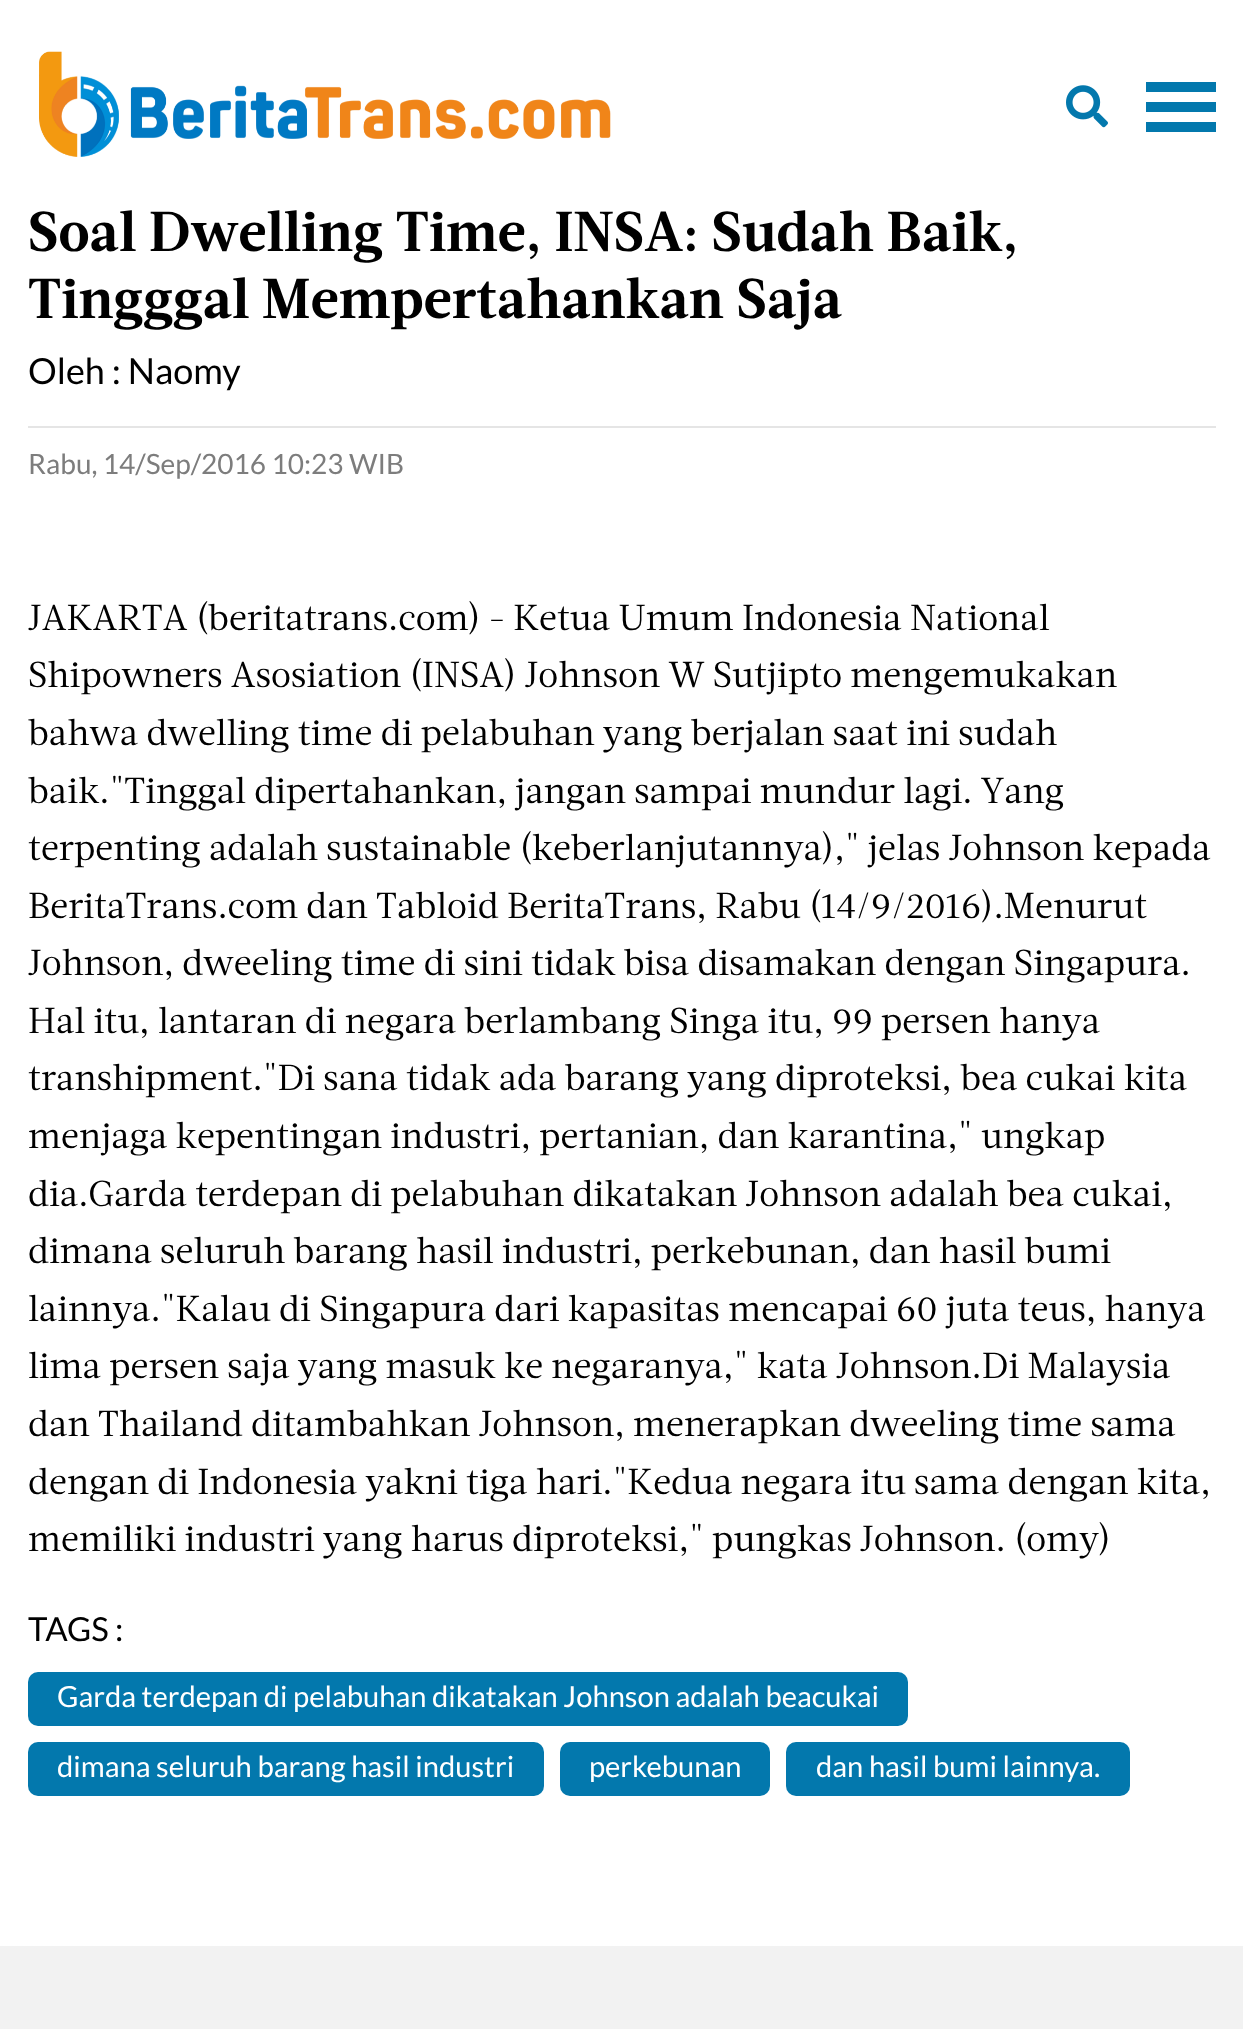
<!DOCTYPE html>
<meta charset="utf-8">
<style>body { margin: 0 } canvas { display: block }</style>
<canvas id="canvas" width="1243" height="2029"></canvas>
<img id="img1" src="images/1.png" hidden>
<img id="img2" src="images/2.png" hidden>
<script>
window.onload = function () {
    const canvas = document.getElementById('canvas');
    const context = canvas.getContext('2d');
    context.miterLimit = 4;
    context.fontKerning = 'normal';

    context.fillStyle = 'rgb(242, 242, 242)';
    context.fillRect(0, 0, 1243, 2029);
    context.fillStyle = 'rgb(255, 255, 255)';
    context.fillRect(0, 0, 1243, 1946);
    context.drawImage(document.getElementById('img1'), 39, 51, 572, 106);
    context.drawImage(document.getElementById('img2'), 1066, 85, 42, 43);
    context.fillStyle = 'rgb(3, 120, 173)';
    context.fillRect(1146, 82, 70, 10);
    context.fillRect(1146, 102, 70, 10);
    context.fillRect(1146, 122, 70, 10);
    context.fillStyle = 'rgb(229, 229, 229)';
    context.fillRect(28, 426, 1188, 2);
    context.fillStyle = 'rgb(3, 120, 173)';
    context.beginPath();
    context.roundRect(28, 1672, 880, 54, 10);
    context.fill();
    context.beginPath();
    context.roundRect(28, 1742, 516, 54, 10);
    context.fill();
    context.beginPath();
    context.roundRect(560, 1742, 210, 54, 10);
    context.fill();
    context.beginPath();
    context.roundRect(786, 1742, 344, 54, 10);
    context.fill();
    context.font = '56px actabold';
    context.fillStyle = 'rgb(0, 0, 0)';
    context.fillText('Soal Dwelling Time, INSA: Sudah Baik,', 28, 251);
    context.fillText('Tingggal Mempertahankan Saja', 28, 318);
    context.font = '36px Lato';
    context.fillText('Oleh : Naomy', 28, 384);
    context.font = '28px Lato';
    context.fillStyle = 'rgb(125, 125, 125)';
    context.fillText('Rabu, 14/Sep/2016 10:23 WIB', 28, 474);
    context.font = '36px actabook';
    context.fillStyle = 'rgb(0, 0, 0)';
    context.fillText('JAKARTA (beritatrans.com) - Ketua Umum Indonesia National', 28, 630);
    context.fillText('Shipowners Asosiation (INSA) Johnson W Sutjipto mengemukakan', 28, 687);
    context.fillText('bahwa dwelling time di pelabuhan yang berjalan saat ini sudah', 28, 745);
    context.fillText('baik."Tinggal dipertahankan, jangan sampai mundur lagi. Yang', 28, 803);
    context.fillText('terpenting adalah sustainable (keberlanjutannya)," jelas Johnson kepada', 28, 860);
    context.fillText('BeritaTrans.com dan Tabloid BeritaTrans, Rabu (14/9/2016).Menurut', 28, 918);
    context.fillText('Johnson, dweeling time di sini tidak bisa disamakan dengan Singapura.', 28, 975);
    context.fillText('Hal itu, lantaran di negara berlambang Singa itu, 99 persen hanya', 28, 1033);
    context.fillText('transhipment."Di sana tidak ada barang yang diproteksi, bea cukai kita', 28, 1090);
    context.fillText('menjaga kepentingan industri, pertanian, dan karantina," ungkap', 28, 1148);
    context.fillText('dia.Garda terdepan di pelabuhan dikatakan Johnson adalah bea cukai,', 28, 1206);
    context.fillText('dimana seluruh barang hasil industri, perkebunan, dan hasil bumi', 28, 1263);
    context.fillText('lainnya."Kalau di Singapura dari kapasitas mencapai 60 juta teus, hanya', 28, 1321);
    context.fillText('lima persen saja yang masuk ke negaranya," kata Johnson.Di Malaysia', 28, 1378);
    context.fillText('dan Thailand ditambahkan Johnson, menerapkan dweeling time sama', 28, 1436);
    context.fillText('dengan di Indonesia yakni tiga hari."Kedua negara itu sama dengan kita,', 28, 1494);
    context.fillText('memiliki industri yang harus diproteksi," pungkas Johnson. (omy)', 28, 1551);
    context.font = '33px Lato';
    context.fillText('TAGS :', 28, 1641);
    context.font = '29.15px Lato';
    context.fillStyle = 'rgb(255, 255, 255)';
    context.fillText('Garda terdepan di pelabuhan dikatakan Johnson adalah beacukai', 57, 1707);
    context.fillText('dimana seluruh barang hasil industri', 57, 1777);
    context.fillText('perkebunan', 589, 1777);
    context.fillText('dan hasil bumi lainnya.', 816, 1777);
};
</script>
